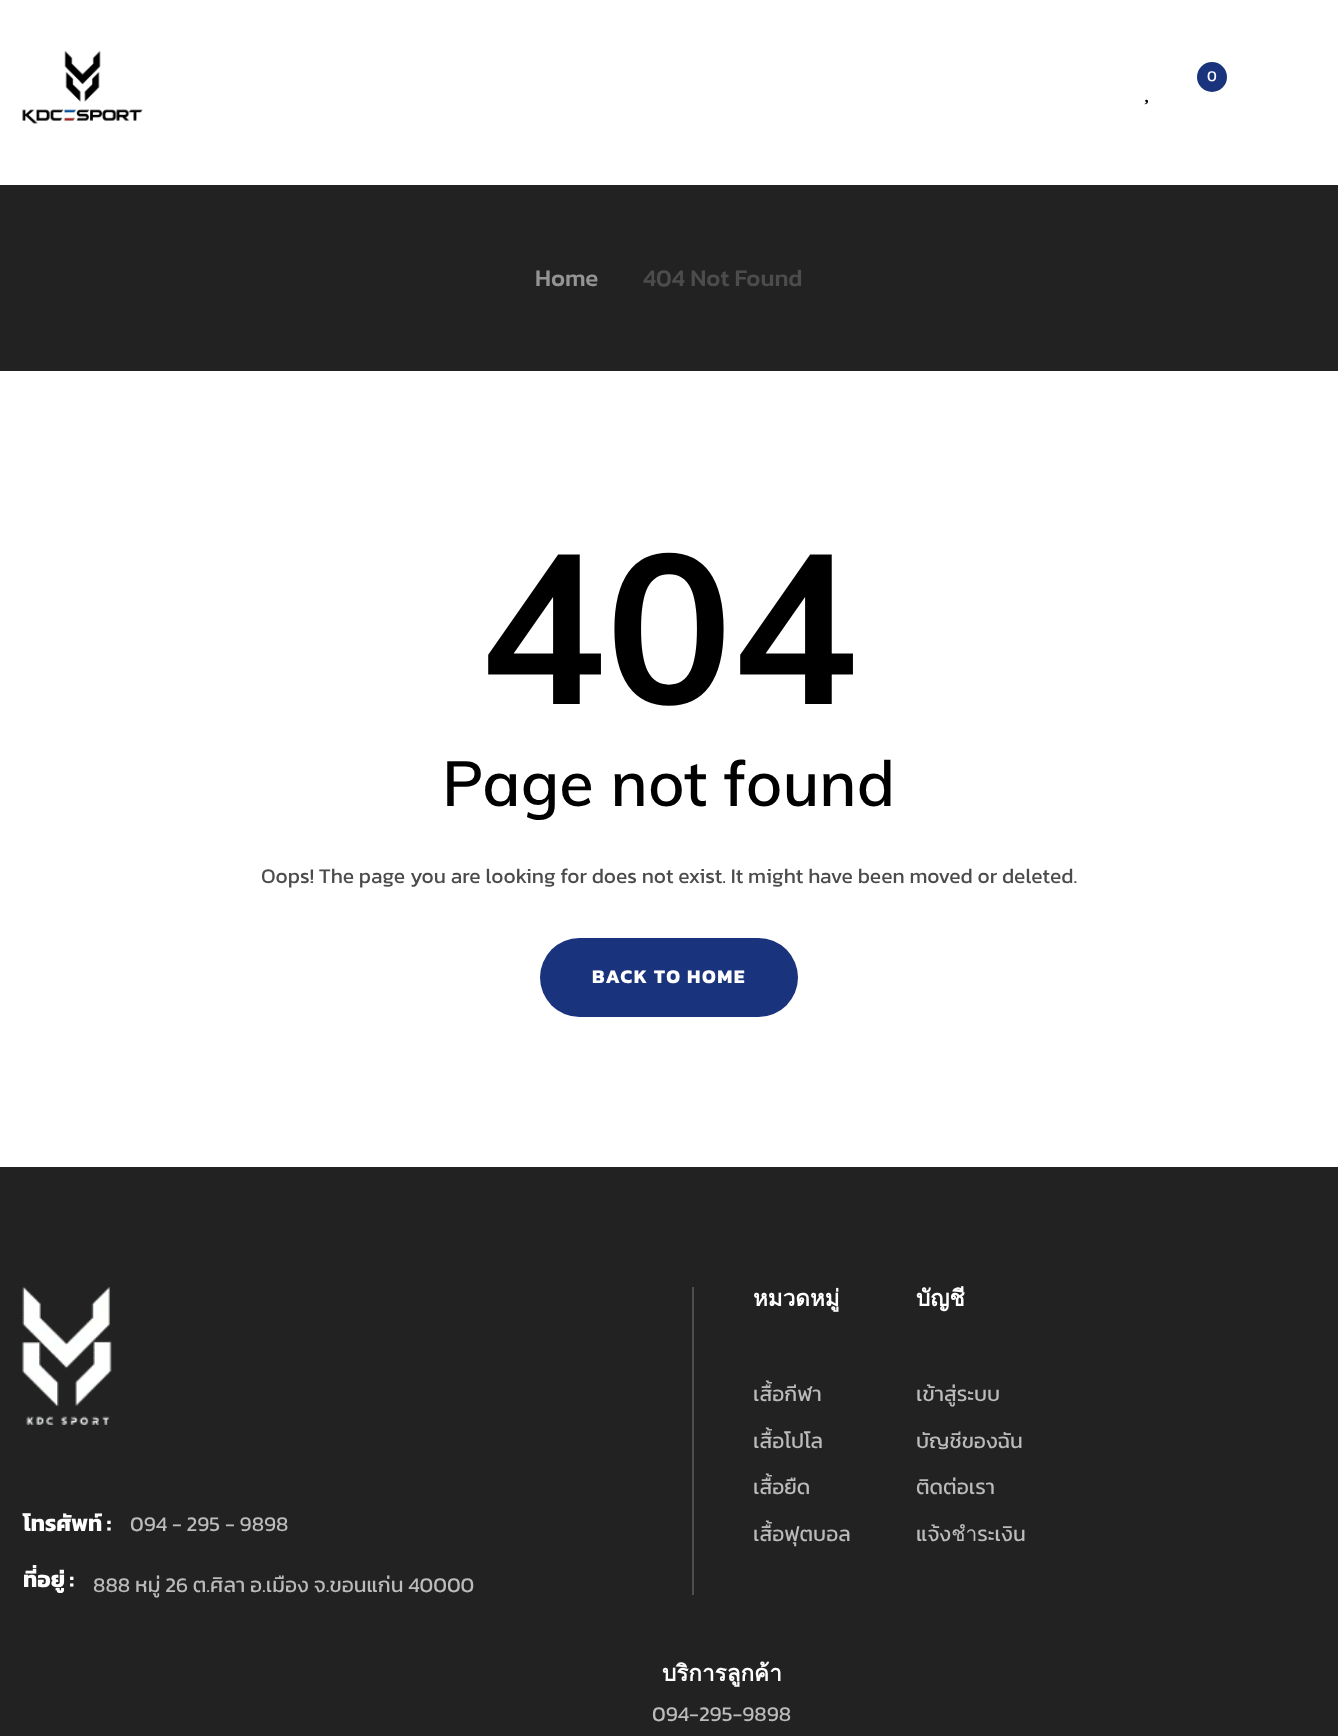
<!DOCTYPE html>
<meta charset="utf-8">
<style>body { margin: 0 } canvas { display: block }</style>
<canvas id="canvas" width="1338" height="1736"></canvas>
<img id="img1" src="images/1.png" hidden>
<img id="img2" src="images/2.png" hidden>
<img id="img3" src="images/3.png" hidden>
<script>
window.onload = function () {
    const canvas = document.getElementById('canvas');
    const context = canvas.getContext('2d');
    context.miterLimit = 4;
    context.fontKerning = 'normal';

    context.fillStyle = 'rgb(255, 255, 255)';
    context.fillRect(0, 0, 1338, 1736);
    context.drawImage(document.getElementById('img1'), 22, 50, 121, 74);
    context.fillStyle = 'rgb(25, 51, 125)';
    context.beginPath();
    context.arc(1212, 77, 15, 0, 2 * Math.PI);
    context.fill();
    context.drawImage(document.getElementById('img2'), 1144, 99, 4, 6);
    context.fillStyle = 'rgb(34, 34, 34)';
    context.fillRect(0, 185, 1338, 186);
    context.fillStyle = 'rgb(25, 51, 125)';
    context.beginPath();
    context.roundRect(540, 938, 258, 79, 39.5);
    context.fill();
    context.fillStyle = 'rgb(34, 34, 34)';
    context.fillRect(0, 1167, 1338, 569);
    context.fillStyle = 'rgb(78, 78, 78)';
    context.fillRect(692, 1287, 2, 308);
    context.drawImage(document.getElementById('img3'), 22, 1287, 90, 138);
    context.font = '15px Kanit';
    context.fillStyle = 'rgb(255, 255, 255)';
    context.fillText('0', 1207, 81);
    context.font = '500 24px Kanit';
    context.fillStyle = 'rgb(148, 148, 148)';
    context.fillText('Home', 535, 286);
    context.fillStyle = 'rgb(76, 76, 76)';
    context.fillText('404 Not Found', 643, 286);
    context.font = 'bold 210px Muli';
    context.fillStyle = 'rgb(0, 0, 0)';
    context.fillText('404', 480, 704);
    context.font = '600 63px Muli';
    context.fillText('Page not found', 442, 806);
    context.font = '21px Kanit';
    context.fillStyle = 'rgb(76, 76, 76)';
    context.fillText('Oops! The page you are looking for does not exist. It might have been moved or deleted.', 261, 883);
    context.letterSpacing = '1.5px';
    context.font = 'bold 19.5px Kanit';
    context.fillStyle = 'rgb(255, 255, 255)';
    context.fillText('BACK TO HOME', 592, 983);
    context.letterSpacing = '0px';
    context.font = 'bold 22.5px Loma';
    context.fillText('หมวดหมู่', 753, 1306);
    context.font = '21px Kanit';
    context.fillStyle = 'rgb(187, 187, 187)';
    context.fillText('เสื้อกีฬา', 753, 1401);
    context.fillText('เสื้อโปโล', 753, 1448);
    context.fillText('เสื้อยืด', 753, 1494);
    context.fillText('เสื้อฟุตบอล', 753, 1541);
    context.font = 'bold 22.5px Loma';
    context.fillStyle = 'rgb(255, 255, 255)';
    context.fillText('บัญชี', 916, 1306);
    context.font = '21px Kanit';
    context.fillStyle = 'rgb(187, 187, 187)';
    context.fillText('เข้าสู่ระบบ', 916, 1401);
    context.fillText('บัญชีของฉัน', 916, 1448);
    context.fillText('ติดต่อเรา', 916, 1494);
    context.fillText('แจ้งชำระเงิน', 916, 1541);
    context.font = 'bold 22.5px Kanit';
    context.fillStyle = 'rgb(255, 255, 255)';
    context.fillText('โทรศัพท์ :', 23, 1531);
    context.font = '21px Kanit';
    context.fillStyle = 'rgb(187, 187, 187)';
    context.fillText('094 - 295 - 9898', 130, 1531);
    context.font = 'bold 22.5px Kanit';
    context.fillStyle = 'rgb(255, 255, 255)';
    context.fillText('ที่อยู่ :', 23, 1587);
    context.font = '21px Kanit';
    context.fillStyle = 'rgb(187, 187, 187)';
    context.fillText('888 หมู่ 26 ต.ศิลา อ.เมือง จ.ขอนแก่น 40000', 93, 1592);
    context.font = 'bold 22.5px Loma';
    context.fillStyle = 'rgb(255, 255, 255)';
    context.fillText('บริการลูกค้า', 662, 1681);
    context.font = '21px Kanit';
    context.fillStyle = 'rgb(187, 187, 187)';
    context.fillText('094-295-9898', 652, 1721);
};
</script>
